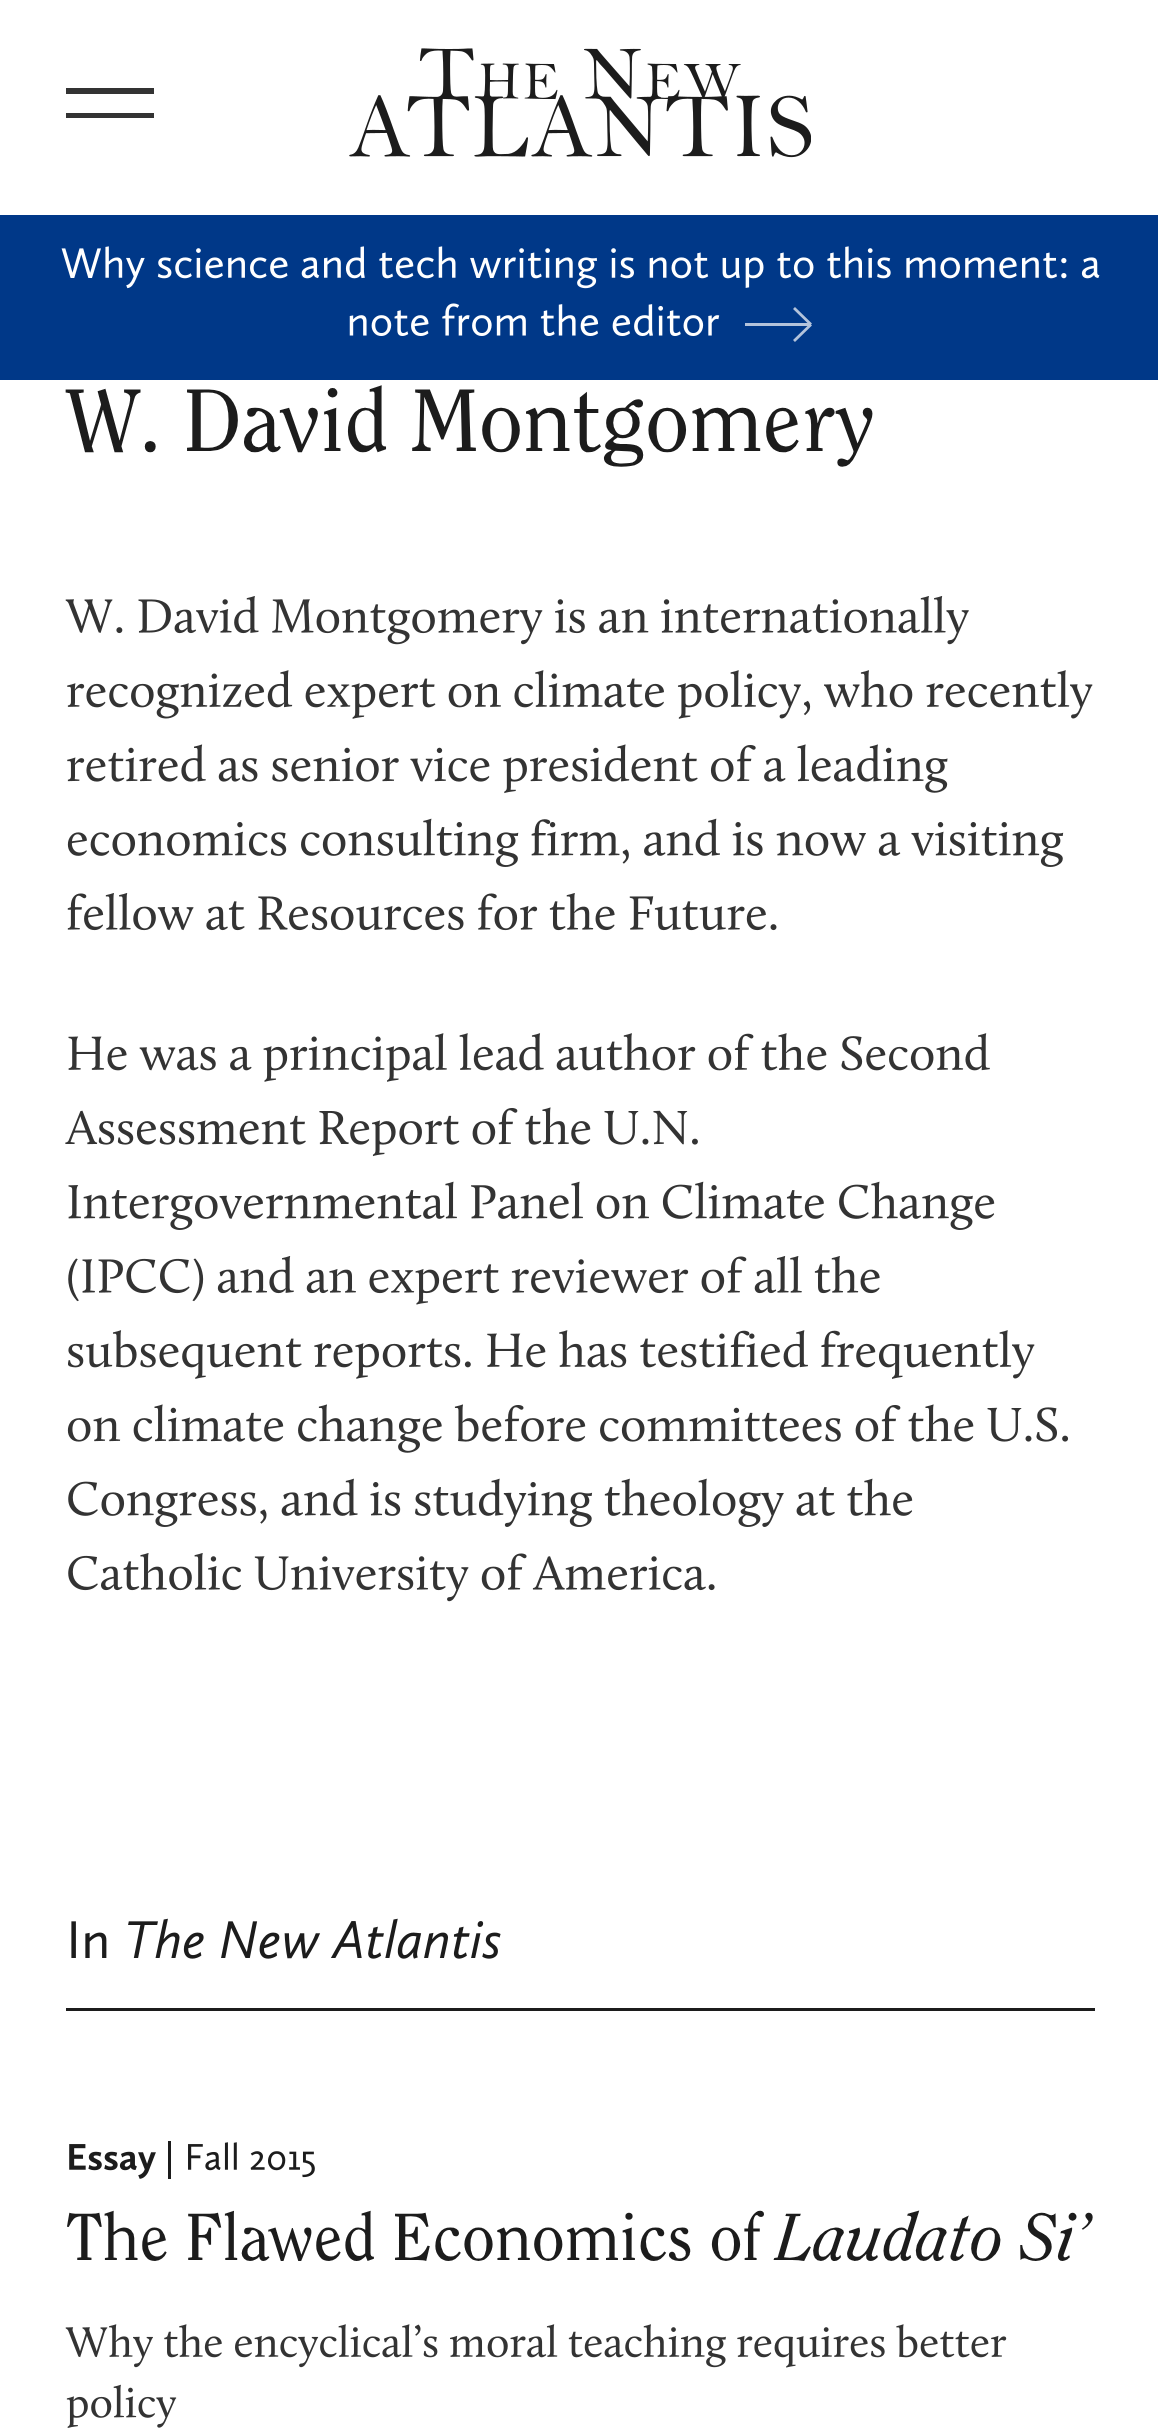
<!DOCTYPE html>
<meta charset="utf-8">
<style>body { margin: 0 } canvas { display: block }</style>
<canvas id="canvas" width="1158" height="2433"></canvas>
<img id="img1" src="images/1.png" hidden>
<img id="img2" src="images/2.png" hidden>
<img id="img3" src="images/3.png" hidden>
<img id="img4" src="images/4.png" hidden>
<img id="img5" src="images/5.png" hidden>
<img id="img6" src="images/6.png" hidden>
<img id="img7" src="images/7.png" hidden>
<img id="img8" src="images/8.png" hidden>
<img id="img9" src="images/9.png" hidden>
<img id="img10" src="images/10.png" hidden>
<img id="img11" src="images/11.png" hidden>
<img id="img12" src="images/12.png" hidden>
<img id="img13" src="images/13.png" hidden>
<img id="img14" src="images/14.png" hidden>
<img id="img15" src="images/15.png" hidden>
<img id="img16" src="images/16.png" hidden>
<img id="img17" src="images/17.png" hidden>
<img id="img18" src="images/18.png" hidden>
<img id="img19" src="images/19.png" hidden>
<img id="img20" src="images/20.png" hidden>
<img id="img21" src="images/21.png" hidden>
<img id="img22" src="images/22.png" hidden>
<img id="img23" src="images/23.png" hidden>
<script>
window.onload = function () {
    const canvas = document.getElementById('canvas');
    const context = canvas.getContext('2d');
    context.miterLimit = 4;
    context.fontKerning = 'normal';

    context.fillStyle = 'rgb(255, 255, 255)';
    context.fillRect(0, 0, 1158, 2433);
    context.drawImage(document.getElementById('img1'), 419, 48, 322, 52);
    context.fillStyle = 'rgb(51, 51, 51)';
    context.beginPath();
    context.moveTo(66, 88);
    context.lineTo(154, 88);
    context.lineTo(154, 94);
    context.lineTo(66, 94);
    context.closePath();
    context.moveTo(66, 113);
    context.lineTo(154, 113);
    context.lineTo(154, 118);
    context.lineTo(66, 118);
    context.closePath();
    context.fill();
    context.drawImage(document.getElementById('img2'), 349, 95, 462, 63);
    context.fillStyle = 'rgb(0, 56, 136)';
    context.fillRect(0, 215, 1158, 165);
    context.drawImage(document.getElementById('img3'), 61, 246, 1039, 43);
    context.drawImage(document.getElementById('img4'), 349, 303, 371, 33);
    context.beginPath();
    context.moveTo(745, 324.5);
    context.lineTo(811, 324.5);
    context.moveTo(811, 324.5);
    context.lineTo(794, 308);
    context.moveTo(811, 324.5);
    context.lineTo(794, 341);
    context.strokeStyle = 'rgb(179, 195, 219)';
    context.lineWidth = 2.8;
    context.stroke();
    context.drawImage(document.getElementById('img5'), 65, 596, 904, 49);
    context.drawImage(document.getElementById('img6'), 67, 670, 1026, 49);
    context.drawImage(document.getElementById('img7'), 67, 744, 881, 50);
    context.drawImage(document.getElementById('img8'), 67, 818, 997, 49);
    context.drawImage(document.getElementById('img9'), 67, 893, 710, 38);
    context.drawImage(document.getElementById('img10'), 68, 1033, 922, 49);
    context.drawImage(document.getElementById('img11'), 65, 1107, 633, 50);
    context.drawImage(document.getElementById('img12'), 68, 1181, 927, 49);
    context.drawImage(document.getElementById('img13'), 68, 1256, 812, 49);
    context.drawImage(document.getElementById('img14'), 68, 1330, 967, 49);
    context.drawImage(document.getElementById('img15'), 67, 1404, 1002, 49);
    context.drawImage(document.getElementById('img16'), 68, 1478, 845, 49);
    context.drawImage(document.getElementById('img17'), 68, 1553, 647, 49);
    context.fillStyle = 'rgb(28, 28, 28)';
    context.fillRect(66, 2008, 1029, 3);
    context.drawImage(document.getElementById('img18'), 71, 1921, 36, 37);
    context.drawImage(document.getElementById('img19'), 128, 1918, 373, 41);
    context.drawImage(document.getElementById('img20'), 69, 2144, 87, 35);
    context.fillRect(168, 2141, 3, 38);
    context.drawImage(document.getElementById('img21'), 188, 2142, 127, 36);
    context.drawImage(document.getElementById('img22'), 65, 2324, 942, 44);
    context.drawImage(document.getElementById('img23'), 66, 2384, 111, 44);
    context.font = '88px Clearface';
    context.fillText('W. David Montgomery', 66, 451);
    context.font = '66px Clearface';
    context.fillText('The Flawed Economics of', 66, 2260);
    context.font = 'italic 66px Clearface';
    context.fillText('Laudato Si’', 777, 2260);
};
</script>
